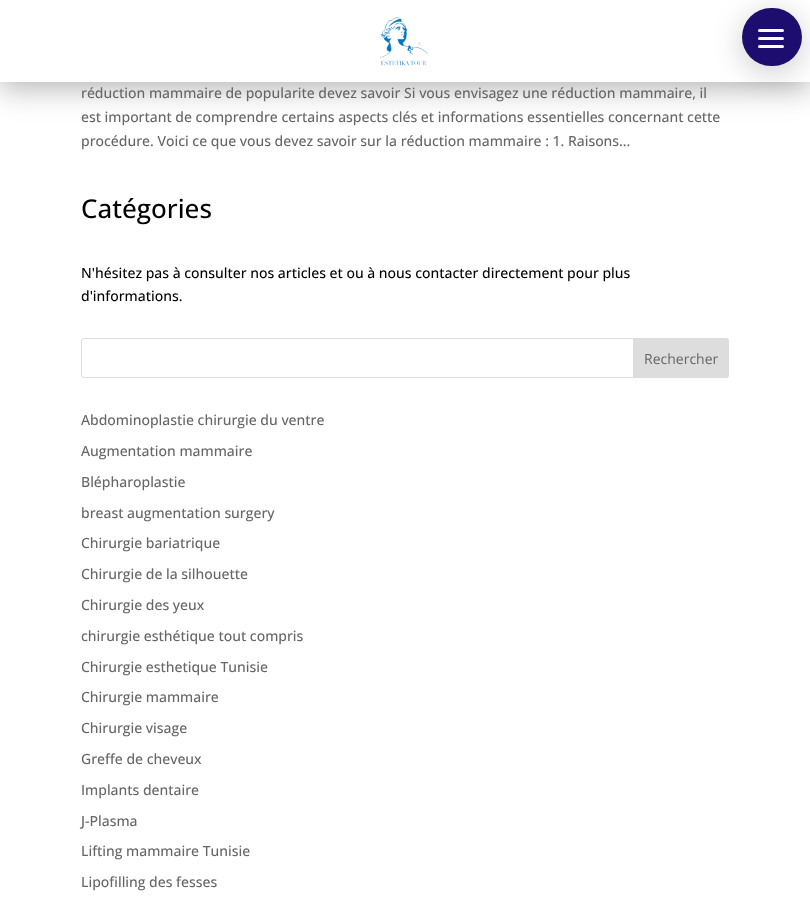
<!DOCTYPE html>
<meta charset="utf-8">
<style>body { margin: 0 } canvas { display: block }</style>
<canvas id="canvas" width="810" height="902"></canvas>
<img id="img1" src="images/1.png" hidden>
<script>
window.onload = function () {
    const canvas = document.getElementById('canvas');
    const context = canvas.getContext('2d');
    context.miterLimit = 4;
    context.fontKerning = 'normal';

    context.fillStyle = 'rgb(255, 255, 255)';
    context.fillRect(0, 0, 810, 902);
    context.fillStyle = 'rgba(0, 0, 0, 0.3)';
    context.filter = 'blur(15px)';
    context.beginPath();
    context.rect(0, 6, 810, 82);
    context.fill();
    context.filter = 'none';
    context.fillStyle = 'rgb(255, 255, 255)';
    context.fillRect(0, 0, 810, 82);
    context.drawImage(document.getElementById('img1'), 380, 17, 48, 49);
    context.fillStyle = 'rgba(0, 0, 0, 0.2)';
    context.filter = 'blur(15px)';
    context.beginPath();
    context.roundRect(742, 14, 60, 58, 29);
    context.fill();
    context.filter = 'none';
    context.fillStyle = 'rgb(29, 13, 111)';
    context.beginPath();
    context.roundRect(742, 8, 60, 58, 29);
    context.fill();
    context.fillStyle = 'rgb(255, 255, 255)';
    context.beginPath();
    context.roundRect(758, 37, 26, 3, 1.5);
    context.fill();
    context.beginPath();
    context.roundRect(758, 29, 26, 3, 1.5);
    context.fill();
    context.beginPath();
    context.roundRect(758, 45, 26, 3, 1.5);
    context.fill();
    context.beginPath();
    context.roundRect(81.5, 338.5, 647, 39, 2.5);
    context.strokeStyle = 'rgb(221, 221, 221)';
    context.stroke();
    context.fillStyle = 'rgb(221, 221, 221)';
    context.beginPath();
    context.roundRect(633.5, 338.5, 95, 39, [0, 2.5, 2.5, 0]);
    context.fill();
    context.stroke();
    context.font = '500 14px Open Sans';
    context.fillStyle = 'rgb(102, 102, 102)';
    context.fillText('réduction mammaire de popularite devez savoir Si vous envisagez une réduction mammaire, il', 81, 98);
    context.fillText('est important de comprendre certains aspects clés et informations essentielles concernant cette', 81, 122);
    context.fillText('procédure. Voici ce que vous devez savoir sur la réduction mammaire : 1. Raisons...', 81, 146);
    context.font = '500 26px Open Sans';
    context.fillStyle = 'rgb(0, 0, 0)';
    context.fillText('Catégories', 81, 218);
    context.font = '500 14px Open Sans';
    context.fillText('N\'hésitez pas à consulter nos articles et ou à nous contacter directement pour plus', 81, 278);
    context.fillText('d\'informations.', 81, 301);
    context.font = '14px Open Sans';
    context.fillStyle = 'rgb(102, 102, 102)';
    context.fillText('Rechercher', 644, 364);
    context.font = '500 14px Open Sans';
    context.fillText('Abdominoplastie chirurgie du ventre', 81, 425);
    context.fillText('Augmentation mammaire', 81, 456);
    context.fillText('Blépharoplastie', 81, 487);
    context.fillText('breast augmentation surgery', 81, 518);
    context.fillText('Chirurgie bariatrique', 81, 548);
    context.fillText('Chirurgie de la silhouette', 81, 579);
    context.fillText('Chirurgie des yeux', 81, 610);
    context.fillText('chirurgie esthétique tout compris', 81, 641);
    context.fillText('Chirurgie esthetique Tunisie', 81, 672);
    context.fillText('Chirurgie mammaire', 81, 702);
    context.fillText('Chirurgie visage', 81, 733);
    context.fillText('Greffe de cheveux', 81, 764);
    context.fillText('Implants dentaire', 81, 795);
    context.fillText('J-Plasma', 81, 826);
    context.fillText('Lifting mammaire Tunisie', 81, 856);
    context.fillText('Lipofilling des fesses', 81, 887);
};
</script>
